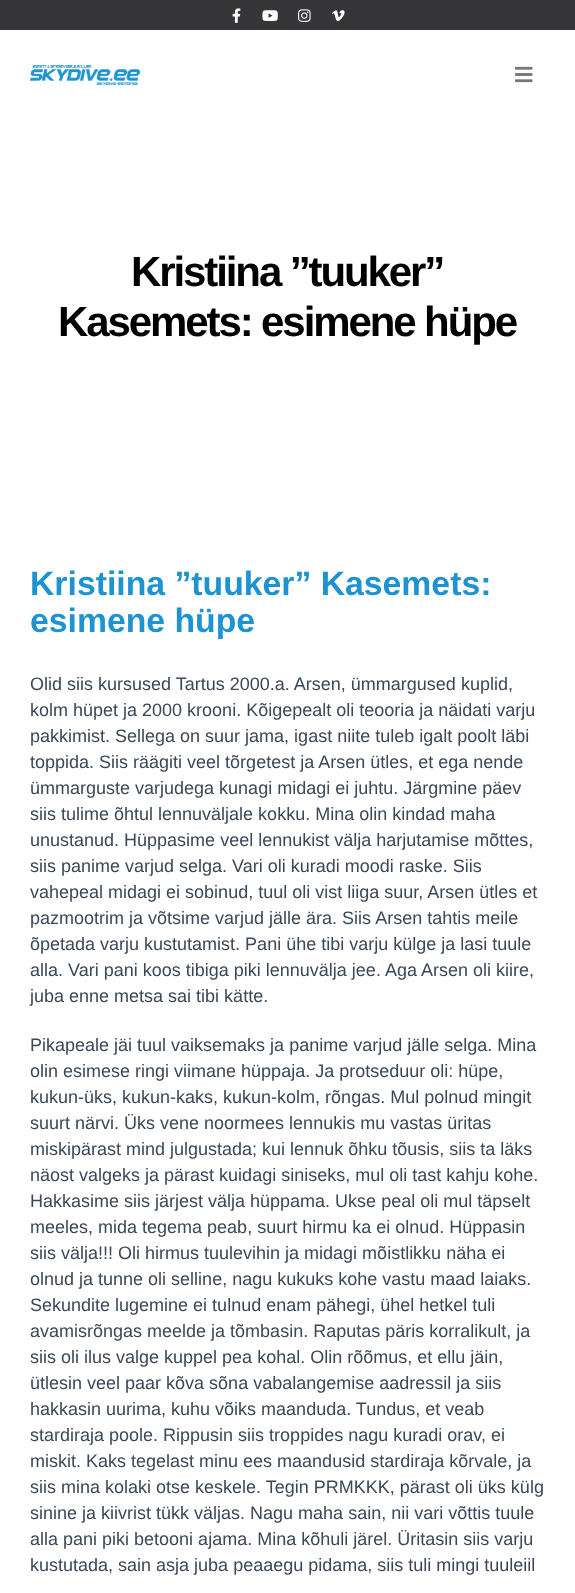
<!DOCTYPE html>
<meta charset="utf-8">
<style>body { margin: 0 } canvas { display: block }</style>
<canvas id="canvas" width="575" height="1593"></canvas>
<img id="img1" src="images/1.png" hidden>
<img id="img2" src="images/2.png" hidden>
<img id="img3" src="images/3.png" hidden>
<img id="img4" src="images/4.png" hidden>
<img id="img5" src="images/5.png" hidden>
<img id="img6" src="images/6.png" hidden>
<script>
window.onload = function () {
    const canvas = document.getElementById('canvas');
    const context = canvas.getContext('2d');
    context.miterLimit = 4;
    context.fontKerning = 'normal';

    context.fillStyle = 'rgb(255, 255, 255)';
    context.fillRect(0, 0, 575, 1593);
    context.fillStyle = 'rgb(54, 53, 55)';
    context.fillRect(0, 0, 575, 30);
    context.drawImage(document.getElementById('img1'), 232, 8, 9, 15);
    context.drawImage(document.getElementById('img2'), 262, 10, 16, 11);
    context.drawImage(document.getElementById('img3'), 298, 9, 13, 13);
    context.drawImage(document.getElementById('img4'), 332, 10, 13, 12);
    context.drawImage(document.getElementById('img5'), 30, 65, 110, 20);
    context.drawImage(document.getElementById('img6'), 515, 66, 18, 17);
    context.letterSpacing = '-2.1px';
    context.font = 'bold 42px Liberation Sans';
    context.fillStyle = 'rgb(0, 0, 0)';
    context.fillText('Kristiina ”tuuker”', 131, 286);
    context.fillText('Kasemets: esimene hüpe', 58, 336);
    context.letterSpacing = '0px';
    context.font = 'bold 33.75px Liberation Sans';
    context.fillStyle = 'rgb(29, 147, 209)';
    context.fillText('Kristiina ”tuuker” Kasemets:', 30, 595);
    context.fillText('esimene hüpe', 30, 632);
    context.font = '18px Liberation Sans';
    context.fillStyle = 'rgb(60, 72, 88)';
    context.fillText('Olid siis kursused Tartus 2000.a. Arsen, ümmargused kuplid,', 30, 690);
    context.fillText('kolm hüpet ja 2000 krooni. Kõigepealt oli teooria ja näidati varju', 30, 716);
    context.fillText('pakkimist. Sellega on suur jama, igast niite tuleb igalt poolt läbi', 30, 742);
    context.fillText('toppida. Siis räägiti veel tõrgetest ja Arsen ütles, et ega nende', 30, 768);
    context.fillText('ümmarguste varjudega kunagi midagi ei juhtu. Järgmine päev', 30, 794);
    context.fillText('siis tulime õhtul lennuväljale kokku. Mina olin kindad maha', 30, 820);
    context.fillText('unustanud. Hüppasime veel lennukist välja harjutamise mõttes,', 30, 846);
    context.fillText('siis panime varjud selga. Vari oli kuradi moodi raske. Siis', 30, 872);
    context.fillText('vahepeal midagi ei sobinud, tuul oli vist liiga suur, Arsen ütles et', 30, 898);
    context.fillText('pazmootrim ja võtsime varjud jälle ära. Siis Arsen tahtis meile', 30, 924);
    context.fillText('õpetada varju kustutamist. Pani ühe tibi varju külge ja lasi tuule', 30, 950);
    context.fillText('alla. Vari pani koos tibiga piki lennuvälja jee. Aga Arsen oli kiire,', 30, 976);
    context.fillText('juba enne metsa sai tibi kätte.', 30, 1002);
    context.fillText('Pikapeale jäi tuul vaiksemaks ja panime varjud jälle selga. Mina', 30, 1051);
    context.fillText('olin esimese ringi viimane hüppaja. Ja protseduur oli: hüpe,', 30, 1077);
    context.fillText('kukun-üks, kukun-kaks, kukun-kolm, rõngas. Mul polnud mingit', 30, 1103);
    context.fillText('suurt närvi. Üks vene noormees lennukis mu vastas üritas', 30, 1129);
    context.fillText('miskipärast mind julgustada; kui lennuk õhku tõusis, siis ta läks', 30, 1155);
    context.fillText('näost valgeks ja pärast kuidagi siniseks, mul oli tast kahju kohe.', 30, 1181);
    context.fillText('Hakkasime siis järjest välja hüppama. Ukse peal oli mul täpselt', 30, 1207);
    context.fillText('meeles, mida tegema peab, suurt hirmu ka ei olnud. Hüppasin', 30, 1233);
    context.fillText('siis välja!!! Oli hirmus tuulevihin ja midagi mõistlikku näha ei', 30, 1259);
    context.fillText('olnud ja tunne oli selline, nagu kukuks kohe vastu maad laiaks.', 30, 1285);
    context.fillText('Sekundite lugemine ei tulnud enam pähegi, ühel hetkel tuli', 30, 1311);
    context.fillText('avamisrõngas meelde ja tõmbasin. Raputas päris korralikult, ja', 30, 1337);
    context.fillText('siis oli ilus valge kuppel pea kohal. Olin rõõmus, et ellu jäin,', 30, 1363);
    context.fillText('ütlesin veel paar kõva sõna vabalangemise aadressil ja siis', 30, 1389);
    context.fillText('hakkasin uurima, kuhu võiks maanduda. Tundus, et veab', 30, 1415);
    context.fillText('stardiraja poole. Rippusin siis troppides nagu kuradi orav, ei', 30, 1441);
    context.fillText('miskit. Kaks tegelast minu ees maandusid stardiraja kõrvale, ja', 30, 1467);
    context.fillText('siis mina kolaki otse keskele. Tegin PRMKKK, pärast oli üks külg', 30, 1493);
    context.fillText('sinine ja kiivrist tükk väljas. Nagu maha sain, nii vari võttis tuule', 30, 1519);
    context.fillText('alla pani piki betooni ajama. Mina kõhuli järel. Üritasin siis varju', 30, 1545);
    context.fillText('kustutada, sain asja juba peaaegu pidama, siis tuli mingi tuuleiil', 30, 1571);
};
</script>
